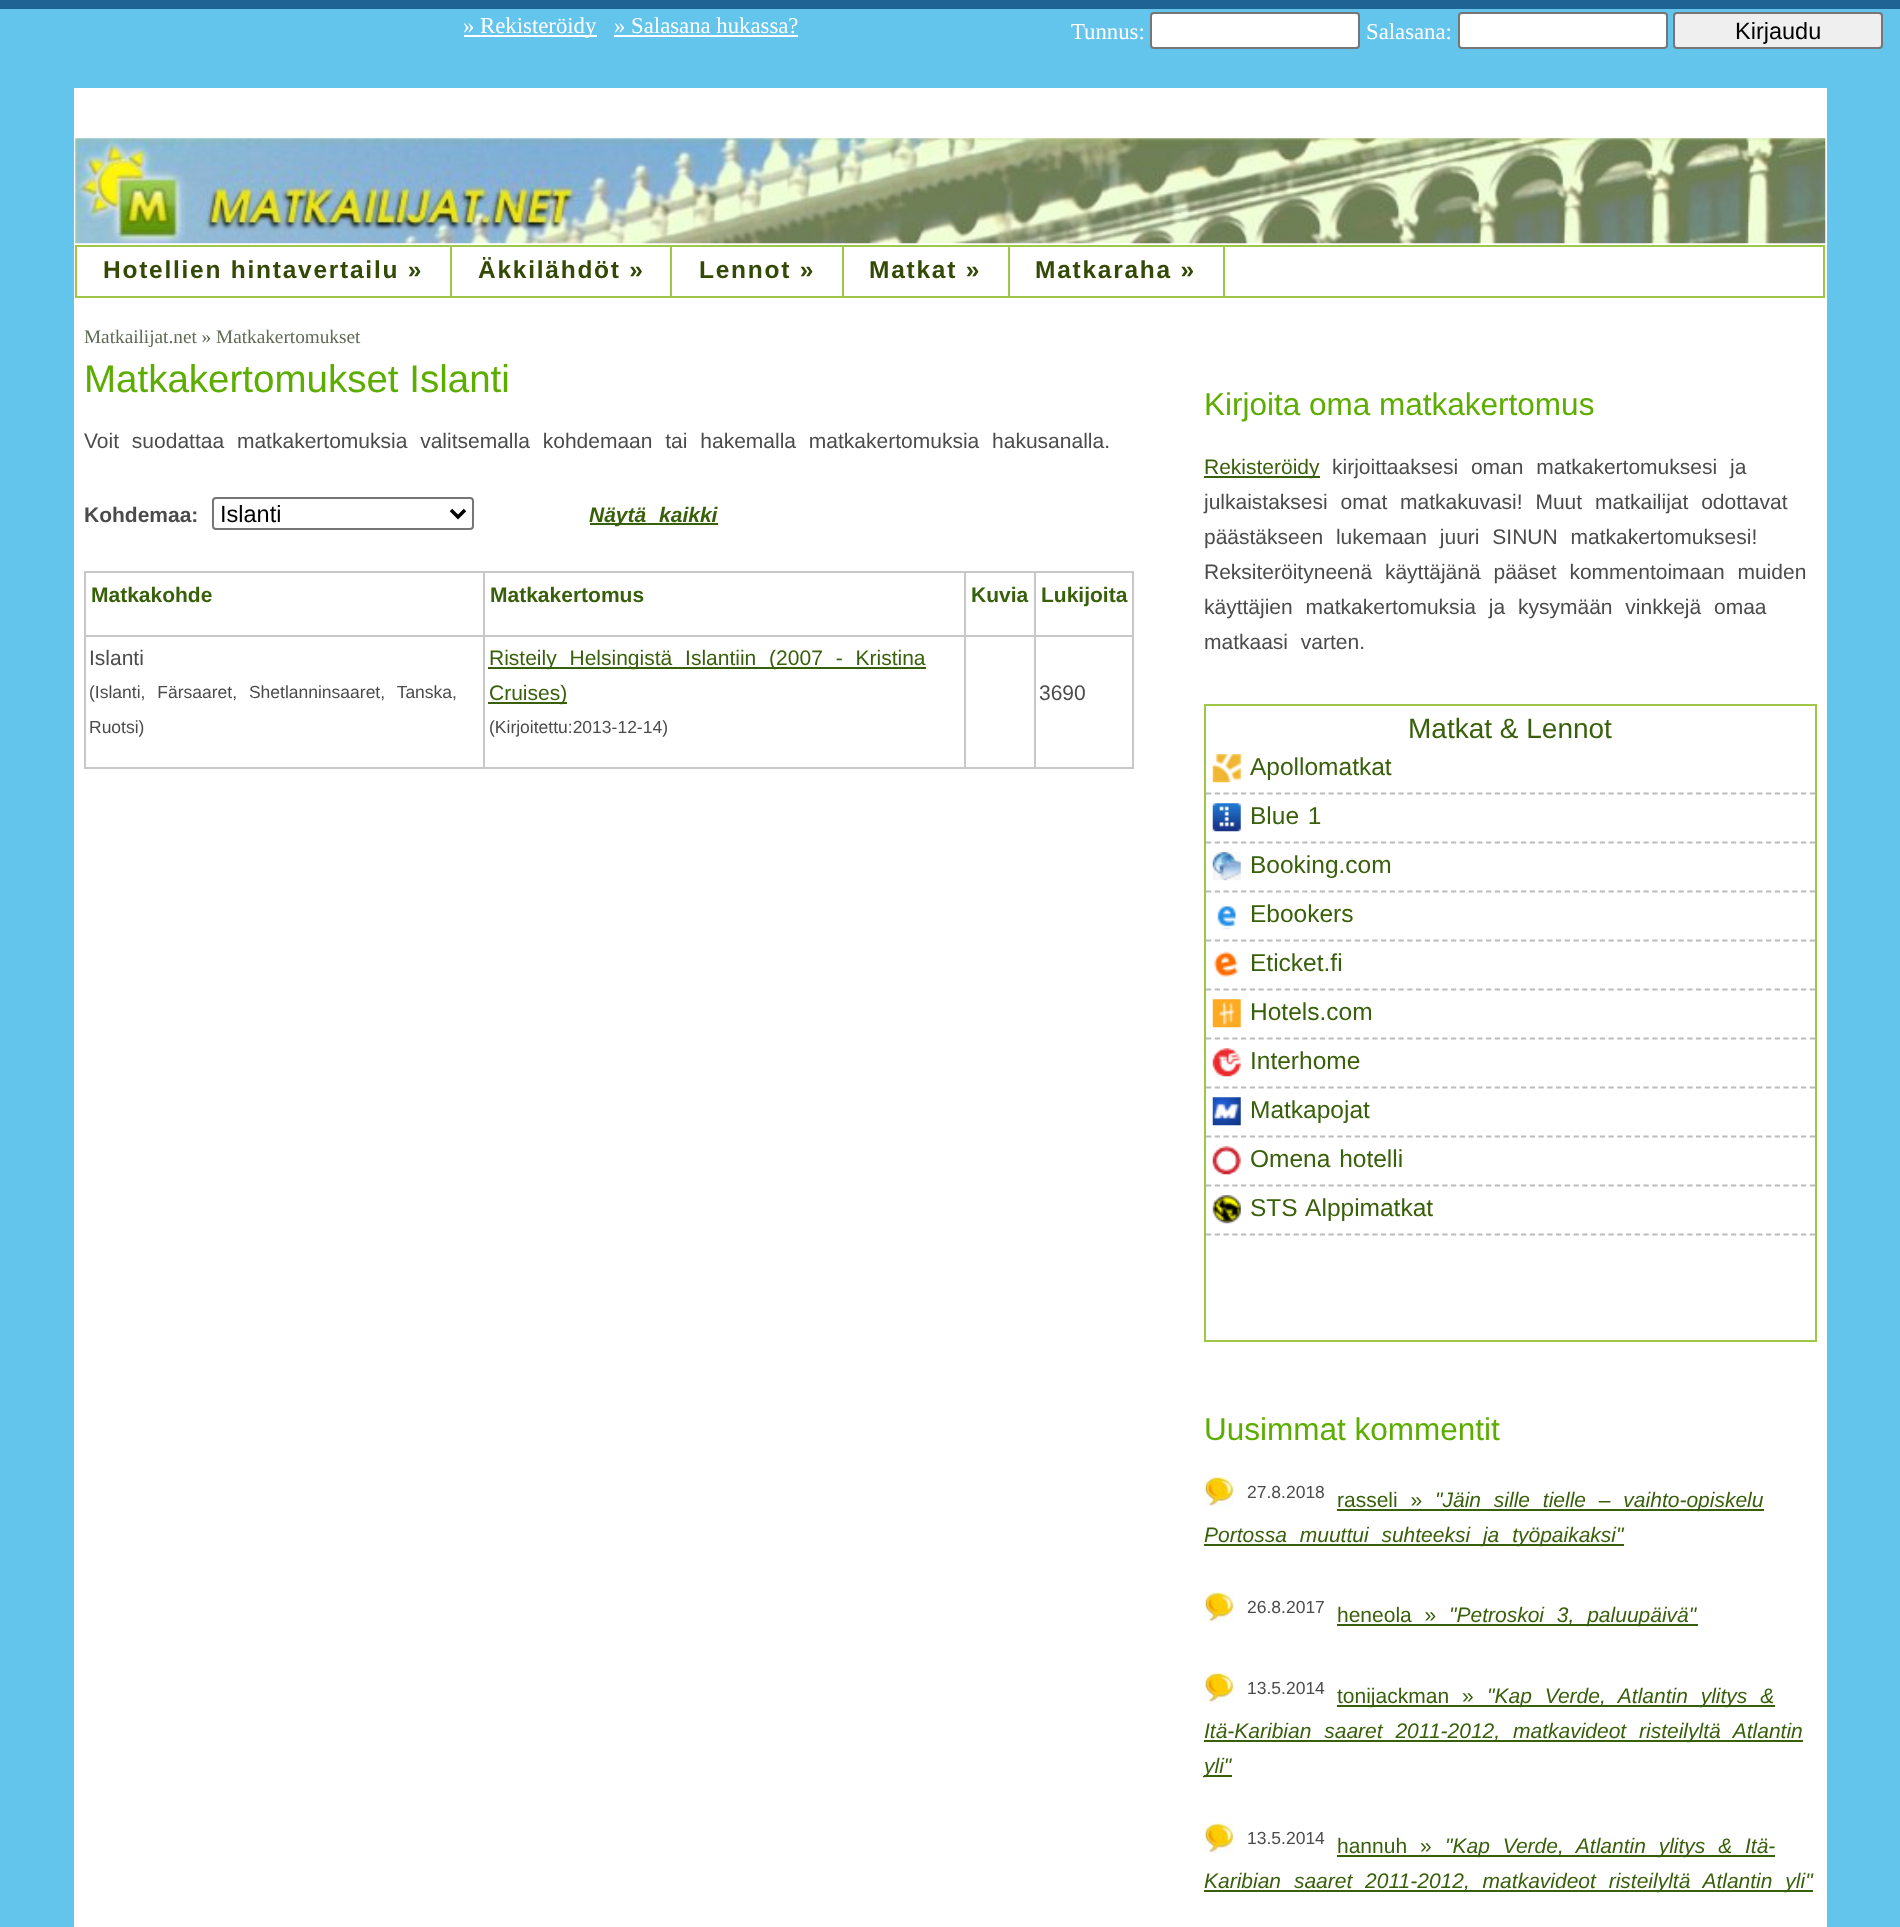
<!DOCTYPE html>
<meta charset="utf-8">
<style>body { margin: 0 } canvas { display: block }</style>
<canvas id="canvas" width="1900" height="1927"></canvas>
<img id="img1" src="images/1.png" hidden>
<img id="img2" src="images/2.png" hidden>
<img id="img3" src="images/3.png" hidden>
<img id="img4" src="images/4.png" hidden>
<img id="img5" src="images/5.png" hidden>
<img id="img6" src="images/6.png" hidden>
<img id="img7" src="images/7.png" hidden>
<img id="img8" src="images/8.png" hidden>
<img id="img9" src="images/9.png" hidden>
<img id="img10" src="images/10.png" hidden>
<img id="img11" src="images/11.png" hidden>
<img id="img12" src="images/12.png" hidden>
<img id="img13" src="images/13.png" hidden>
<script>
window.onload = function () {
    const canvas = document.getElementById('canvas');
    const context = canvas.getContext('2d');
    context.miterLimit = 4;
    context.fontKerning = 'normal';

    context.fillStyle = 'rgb(99, 196, 236)';
    context.fillRect(0, 0, 1900, 1927);
    context.fillStyle = 'rgb(30, 99, 148)';
    context.fillRect(0, 0, 1900, 9);
    context.fillStyle = 'rgb(255, 255, 255)';
    context.fillRect(464, 35, 133, 2);
    context.fillRect(614, 35, 184, 2);
    context.beginPath();
    context.roundRect(1151, 13, 208, 35, 3);
    context.fill();
    context.strokeStyle = 'rgb(118, 118, 118)';
    context.lineWidth = 2;
    context.stroke();
    context.beginPath();
    context.roundRect(1459, 13, 208, 35, 3);
    context.fill();
    context.stroke();
    context.fillStyle = 'rgb(239, 239, 239)';
    context.beginPath();
    context.roundRect(1674, 13, 208, 35, 3);
    context.fill();
    context.stroke();
    context.fillStyle = 'rgb(255, 255, 255)';
    context.fillRect(74, 88, 1753, 1839);
    context.drawImage(document.getElementById('img1'), 75, 138, 1751, 106);
    context.strokeStyle = 'rgb(158, 198, 71)';
    context.strokeRect(76, 246, 1748, 51);
    context.fillStyle = 'rgb(158, 198, 71)';
    context.fillRect(450, 247, 2, 49);
    context.fillRect(670, 247, 2, 49);
    context.fillRect(842, 247, 2, 49);
    context.fillRect(1008, 247, 2, 49);
    context.fillRect(1223, 247, 2, 49);
    context.beginPath();
    context.roundRect(213, 498, 260, 31, 3);
    context.strokeStyle = 'rgb(118, 118, 118)';
    context.stroke();
    context.beginPath();
    context.moveTo(451, 510);
    context.lineTo(458, 517);
    context.lineTo(465, 510);
    context.strokeStyle = 'rgb(0, 0, 0)';
    context.lineWidth = 3.5;
    context.stroke();
    context.fillStyle = 'rgb(56, 95, 10)';
    context.fillRect(590, 523, 128, 2);
    context.fillStyle = 'rgb(200, 200, 200)';
    context.fillRect(1034, 571, 100, 2);
    context.fillRect(1034, 635, 100, 2);
    context.fillRect(1132, 635, 2, 133);
    context.fillRect(1034, 767, 100, 2);
    context.fillRect(1034, 635, 2, 133);
    context.fillRect(964, 635, 72, 2);
    context.fillRect(1034, 571, 2, 66);
    context.fillRect(964, 571, 72, 2);
    context.fillRect(964, 767, 72, 2);
    context.fillRect(964, 635, 2, 133);
    context.fillRect(483, 635, 483, 2);
    context.fillRect(964, 571, 2, 66);
    context.fillRect(483, 571, 483, 2);
    context.fillRect(483, 767, 483, 2);
    context.fillRect(483, 635, 2, 133);
    context.fillRect(84, 635, 401, 2);
    context.fillRect(483, 571, 2, 66);
    context.fillRect(84, 571, 401, 2);
    context.fillRect(84, 767, 401, 2);
    context.fillRect(84, 635, 2, 133);
    context.fillRect(84, 571, 2, 66);
    context.fillRect(1132, 571, 2, 66);
    context.fillStyle = 'rgb(56, 95, 10)';
    context.fillRect(488, 667, 438, 2);
    context.fillRect(488, 702, 79, 2);
    context.fillRect(1204, 476, 116, 2);
    context.strokeStyle = 'rgb(158, 198, 71)';
    context.lineWidth = 2;
    context.strokeRect(1205, 705, 611, 636);
    context.beginPath();
    context.moveTo(1206, 793.5);
    context.lineTo(1815, 793.5);
    context.strokeStyle = 'rgb(188, 188, 188)';
    context.lineWidth = 1.8;
    context.setLineDash([5.25, 3.5]);
    context.stroke();
    context.drawImage(document.getElementById('img2'), 1212, 754, 29, 29);
    context.beginPath();
    context.moveTo(1206, 842.5);
    context.lineTo(1815, 842.5);
    context.stroke();
    context.drawImage(document.getElementById('img3'), 1212, 803, 29, 29);
    context.beginPath();
    context.moveTo(1206, 891.5);
    context.lineTo(1815, 891.5);
    context.stroke();
    context.drawImage(document.getElementById('img4'), 1212, 852, 29, 29);
    context.beginPath();
    context.moveTo(1206, 940.5);
    context.lineTo(1815, 940.5);
    context.stroke();
    context.drawImage(document.getElementById('img5'), 1217, 906, 19, 24);
    context.beginPath();
    context.moveTo(1206, 989.5);
    context.lineTo(1815, 989.5);
    context.stroke();
    context.drawImage(document.getElementById('img6'), 1214, 951, 24, 26);
    context.beginPath();
    context.moveTo(1206, 1038.5);
    context.lineTo(1815, 1038.5);
    context.stroke();
    context.drawImage(document.getElementById('img7'), 1212, 999, 29, 29);
    context.beginPath();
    context.moveTo(1206, 1087.5);
    context.lineTo(1815, 1087.5);
    context.stroke();
    context.drawImage(document.getElementById('img8'), 1212, 1048, 29, 29);
    context.beginPath();
    context.moveTo(1206, 1136.5);
    context.lineTo(1815, 1136.5);
    context.stroke();
    context.drawImage(document.getElementById('img9'), 1212, 1097, 29, 29);
    context.beginPath();
    context.moveTo(1206, 1185.5);
    context.lineTo(1815, 1185.5);
    context.stroke();
    context.drawImage(document.getElementById('img10'), 1212, 1146, 29, 29);
    context.beginPath();
    context.moveTo(1206, 1234.5);
    context.lineTo(1815, 1234.5);
    context.stroke();
    context.drawImage(document.getElementById('img11'), 1212, 1195, 29, 29);
    context.drawImage(document.getElementById('img12'), 1204, 1477, 30, 30);
    context.fillRect(1337, 1509, 427, 2);
    context.fillRect(1204, 1544, 420, 2);
    context.drawImage(document.getElementById('img13'), 1204, 1592, 30, 31);
    context.fillRect(1337, 1624, 361, 2);
    context.drawImage(document.getElementById('img12'), 1204, 1673, 30, 30);
    context.fillRect(1337, 1705, 438, 2);
    context.fillRect(1204, 1740, 599, 2);
    context.fillRect(1204, 1775, 28, 2);
    context.drawImage(document.getElementById('img13'), 1204, 1823, 30, 31);
    context.fillRect(1337, 1855, 438, 2);
    context.fillRect(1204, 1890, 609, 2);
    context.font = '22.75px Liberation Serif';
    context.fillStyle = 'rgb(255, 255, 255)';
    context.fillText('» Rekisteröidy', 463, 33);
    context.fillText('» Salasana hukassa?', 614, 33);
    context.fillText('Tunnus:', 1071, 39);
    context.fillText('Salasana:', 1366, 39);
    context.font = '23.5px Liberation Sans';
    context.fillStyle = 'rgb(0, 0, 0)';
    context.fillText('Kirjaudu', 1735, 39);
    context.letterSpacing = '1.75px';
    context.font = 'bold 24.5px Liberation Sans';
    context.fillStyle = 'rgb(51, 73, 5)';
    context.fillText('Hotellien hintavertailu »', 103, 278);
    context.fillText('Äkkilähdöt »', 478, 278);
    context.fillText('Lennot »', 699, 278);
    context.fillText('Matkat »', 869, 278);
    context.fillText('Matkaraha »', 1035, 278);
    context.letterSpacing = '0px';
    context.font = '19.25px Liberation Serif';
    context.fillStyle = 'rgb(94, 106, 84)';
    context.fillText('Matkailijat.net » Matkakertomukset', 84, 343);
    context.font = '38.5px Liberation Sans';
    context.fillStyle = 'rgb(93, 172, 0)';
    context.fillText('Matkakertomukset Islanti', 84, 392);
    context.wordSpacing = '7px';
    context.font = '21px Liberation Sans';
    context.fillStyle = 'rgb(75, 75, 75)';
    context.fillText('Voit suodattaa matkakertomuksia valitsemalla kohdemaan tai hakemalla matkakertomuksia hakusanalla.', 84, 448);
    context.wordSpacing = '0px';
    context.font = 'bold 21px Liberation Sans';
    context.fillText('Kohdemaa:', 84, 522);
    context.font = '23.5px Liberation Sans';
    context.fillStyle = 'rgb(0, 0, 0)';
    context.fillText('Islanti', 220, 522);
    context.wordSpacing = '7px';
    context.font = 'italic bold 21px Liberation Sans';
    context.fillStyle = 'rgb(56, 95, 10)';
    context.fillText('Näytä kaikki', 589, 522);
    context.wordSpacing = '0px';
    context.font = 'bold 21px Liberation Sans';
    context.fillText('Matkakohde', 91, 602);
    context.fillText('Matkakertomus', 490, 602);
    context.fillText('Kuvia', 971, 602);
    context.fillText('Lukijoita', 1041, 602);
    context.font = '21px Liberation Sans';
    context.fillStyle = 'rgb(75, 75, 75)';
    context.fillText('Islanti', 89, 665);
    context.wordSpacing = '7px';
    context.font = '17.5px Liberation Sans';
    context.fillText('(Islanti, Färsaaret, Shetlanninsaaret, Tanska,', 89, 698);
    context.wordSpacing = '0px';
    context.fillText('Ruotsi)', 89, 733);
    context.wordSpacing = '7px';
    context.font = '21px Liberation Sans';
    context.fillStyle = 'rgb(56, 95, 10)';
    context.fillText('Risteily Helsingistä Islantiin (2007 - Kristina', 489, 665);
    context.wordSpacing = '0px';
    context.fillText('Cruises)', 489, 700);
    context.font = '17.5px Liberation Sans';
    context.fillStyle = 'rgb(75, 75, 75)';
    context.fillText('(Kirjoitettu:2013-12-14)', 489, 733);
    context.font = '21px Liberation Sans';
    context.fillText('3690', 1039, 700);
    context.font = '31.5px Liberation Sans';
    context.fillStyle = 'rgb(93, 172, 0)';
    context.fillText('Kirjoita oma matkakertomus', 1204, 415);
    context.font = '21px Liberation Sans';
    context.fillStyle = 'rgb(56, 95, 10)';
    context.fillText('Rekisteröidy', 1204, 474);
    context.wordSpacing = '7px';
    context.fillStyle = 'rgb(75, 75, 75)';
    context.fillText('kirjoittaaksesi oman matkakertomuksesi ja', 1332, 474);
    context.fillText('julkaistaksesi omat matkakuvasi! Muut matkailijat odottavat', 1204, 509);
    context.fillText('päästäkseen lukemaan juuri SINUN matkakertomuksesi!', 1204, 544);
    context.fillText('Reksiteröityneenä käyttäjänä pääset kommentoimaan muiden', 1204, 579);
    context.fillText('käyttäjien matkakertomuksia ja kysymään vinkkejä omaa', 1204, 614);
    context.fillText('matkaasi varten.', 1204, 649);
    context.wordSpacing = '0px';
    context.font = '28px Liberation Sans';
    context.fillStyle = 'rgb(56, 95, 10)';
    context.fillText('Matkat & Lennot', 1408, 738);
    context.font = '24.5px Liberation Sans';
    context.fillText('Apollomatkat', 1250, 775);
    context.wordSpacing = '2px';
    context.fillText('Blue 1', 1250, 824);
    context.wordSpacing = '0px';
    context.fillText('Booking.com', 1250, 873);
    context.fillText('Ebookers', 1250, 922);
    context.fillText('Eticket.fi', 1250, 971);
    context.fillText('Hotels.com', 1250, 1020);
    context.fillText('Interhome', 1250, 1069);
    context.fillText('Matkapojat', 1250, 1118);
    context.wordSpacing = '2px';
    context.fillText('Omena hotelli', 1250, 1167);
    context.fillText('STS Alppimatkat', 1250, 1216);
    context.wordSpacing = '0px';
    context.font = '31.5px Liberation Sans';
    context.fillStyle = 'rgb(93, 172, 0)';
    context.fillText('Uusimmat kommentit', 1204, 1440);
    context.font = '17.5px Liberation Sans';
    context.fillStyle = 'rgb(75, 75, 75)';
    context.fillText('27.8.2018', 1247, 1498);
    context.wordSpacing = '7px';
    context.font = '21px Liberation Sans';
    context.fillStyle = 'rgb(56, 95, 10)';
    context.fillText('rasseli »', 1337, 1507);
    context.font = 'italic 21px Liberation Sans';
    context.fillText('"Jäin sille tielle – vaihto-opiskelu', 1435, 1507);
    context.fillText('Portossa muuttui suhteeksi ja työpaikaksi"', 1204, 1542);
    context.wordSpacing = '0px';
    context.font = '17.5px Liberation Sans';
    context.fillStyle = 'rgb(75, 75, 75)';
    context.fillText('26.8.2017', 1247, 1613);
    context.wordSpacing = '7px';
    context.font = '21px Liberation Sans';
    context.fillStyle = 'rgb(56, 95, 10)';
    context.fillText('heneola »', 1337, 1622);
    context.font = 'italic 21px Liberation Sans';
    context.fillText('"Petroskoi 3, paluupäivä"', 1449, 1622);
    context.wordSpacing = '0px';
    context.font = '17.5px Liberation Sans';
    context.fillStyle = 'rgb(75, 75, 75)';
    context.fillText('13.5.2014', 1247, 1694);
    context.wordSpacing = '7px';
    context.font = '21px Liberation Sans';
    context.fillStyle = 'rgb(56, 95, 10)';
    context.fillText('tonijackman »', 1337, 1703);
    context.font = 'italic 21px Liberation Sans';
    context.fillText('"Kap Verde, Atlantin ylitys &', 1487, 1703);
    context.fillText('Itä-Karibian saaret 2011-2012, matkavideot risteilyltä Atlantin', 1204, 1738);
    context.wordSpacing = '0px';
    context.fillText('yli"', 1204, 1773);
    context.font = '17.5px Liberation Sans';
    context.fillStyle = 'rgb(75, 75, 75)';
    context.fillText('13.5.2014', 1247, 1844);
    context.wordSpacing = '7px';
    context.font = '21px Liberation Sans';
    context.fillStyle = 'rgb(56, 95, 10)';
    context.fillText('hannuh »', 1337, 1853);
    context.font = 'italic 21px Liberation Sans';
    context.fillText('"Kap Verde, Atlantin ylitys & Itä-', 1445, 1853);
    context.fillText('Karibian saaret 2011-2012, matkavideot risteilyltä Atlantin yli"', 1204, 1888);
};
</script>
